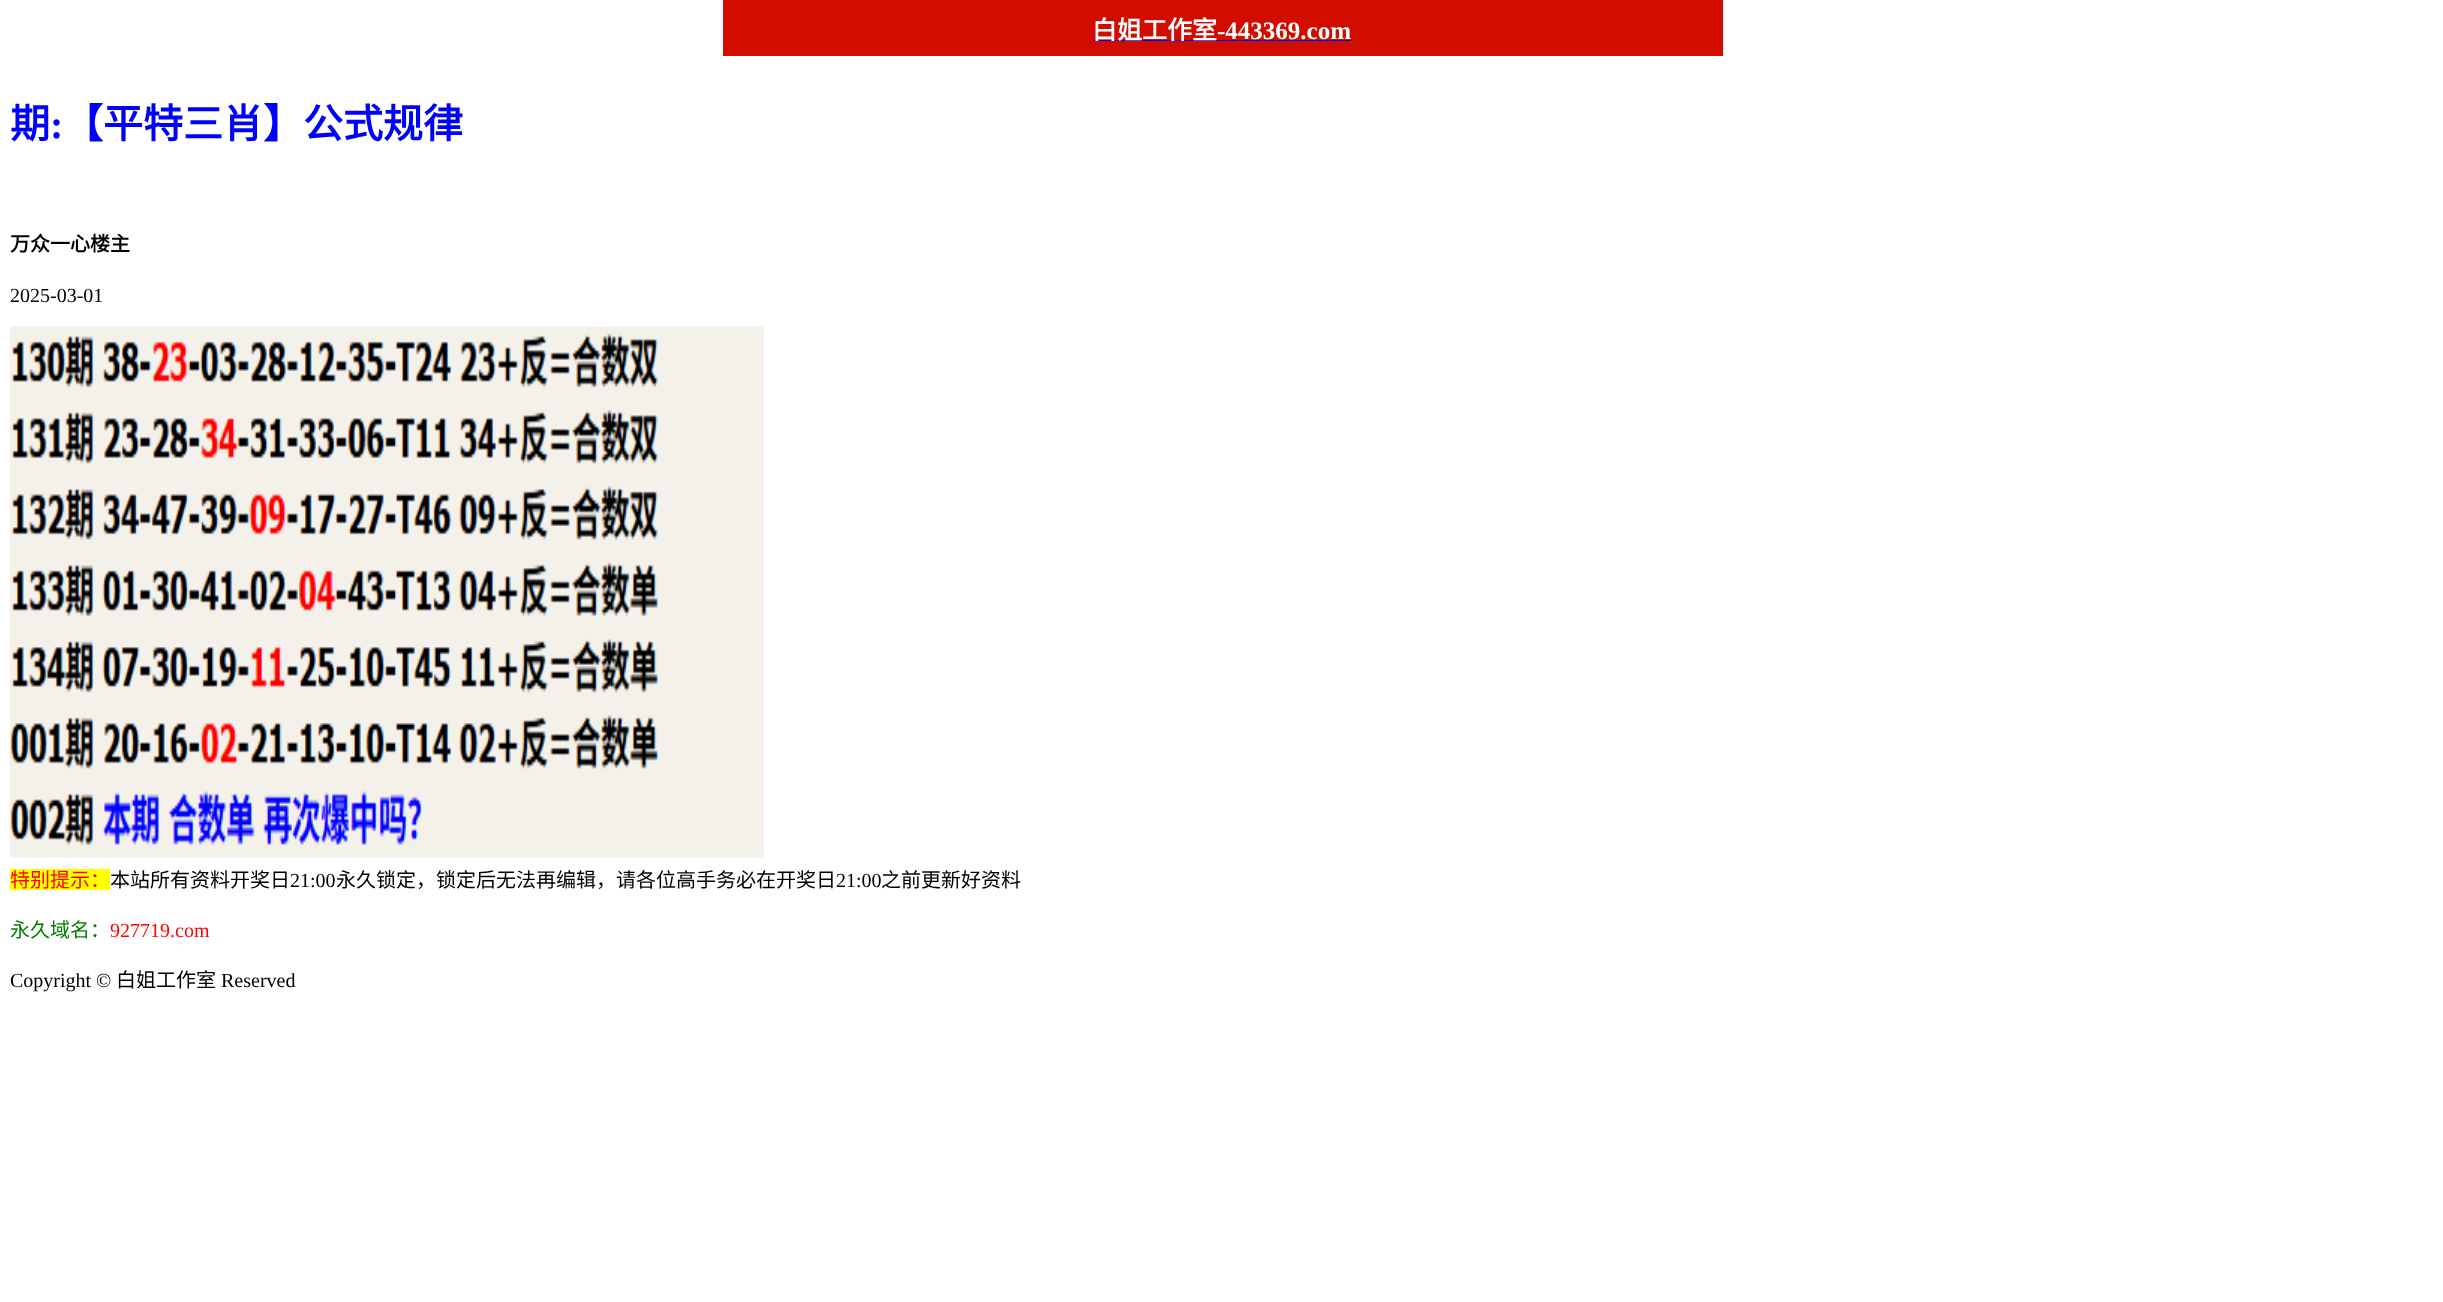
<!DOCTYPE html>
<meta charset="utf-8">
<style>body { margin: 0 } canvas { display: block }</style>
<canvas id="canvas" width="2443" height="1302"></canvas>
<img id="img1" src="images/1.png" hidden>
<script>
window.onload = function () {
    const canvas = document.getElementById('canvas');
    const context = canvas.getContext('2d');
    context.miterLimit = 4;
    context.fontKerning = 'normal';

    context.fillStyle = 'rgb(255, 255, 255)';
    context.fillRect(0, 0, 2443, 1302);
    context.fillStyle = 'rgb(210, 13, 0)';
    context.fillRect(723, 0, 1000, 56);
    context.fillStyle = 'rgb(0, 0, 238)';
    context.fillRect(1093, 40, 258, 1);
    context.drawImage(document.getElementById('img1'), 10, 326, 754, 532);
    context.fillStyle = 'rgb(255, 255, 0)';
    context.fillRect(10, 869, 100, 21);
    context.font = 'bold 25px Noto Sans CJK SC';
    context.fillStyle = 'rgb(255, 255, 255)';
    context.fillText('白姐工作室', 1092, 39);
    context.font = 'bold 25px Liberation Serif';
    context.fillText('-443369.com', 1217, 39);
    context.font = 'bold 40px Noto Sans CJK SC';
    context.fillStyle = 'rgb(0, 0, 255)';
    context.fillText('期', 10, 138);
    context.font = 'bold 40px Liberation Serif';
    context.fillText(':', 50, 138);
    context.font = 'bold 40px Noto Sans CJK SC';
    context.fillText('【平特三肖】公式规律', 63, 138);
    context.font = 'bold 20px Noto Sans CJK SC';
    context.fillStyle = 'rgb(0, 0, 0)';
    context.fillText('万众一心楼主', 10, 251);
    context.font = '20px Liberation Serif';
    context.fillText('2025-03-01', 10, 302);
    context.font = '20px Noto Sans CJK SC';
    context.fillStyle = 'rgb(255, 0, 0)';
    context.fillText('特别提示：', 10, 887);
    context.fillStyle = 'rgb(0, 0, 0)';
    context.fillText('本站所有资料开奖日', 110, 887);
    context.font = '20px Liberation Serif';
    context.fillText('21:00', 290, 887);
    context.font = '20px Noto Sans CJK SC';
    context.fillText('永久锁定，锁定后无法再编辑，请各位高手务必在开奖日', 336, 887);
    context.font = '20px Liberation Serif';
    context.fillText('21:00', 836, 887);
    context.font = '20px Noto Sans CJK SC';
    context.fillText('之前更新好资料', 881, 887);
    context.fillStyle = 'rgb(0, 128, 0)';
    context.fillText('永久域名：', 10, 937);
    context.font = '20px Liberation Serif';
    context.fillStyle = 'rgb(255, 0, 0)';
    context.fillText('927719.com', 110, 937);
    context.fillStyle = 'rgb(0, 0, 0)';
    context.fillText('Copyright ©', 10, 987);
    context.font = '20px Noto Sans CJK SC';
    context.fillText('白姐工作室', 116, 987);
    context.font = '20px Liberation Serif';
    context.fillText('Reserved', 221, 987);
};
</script>
